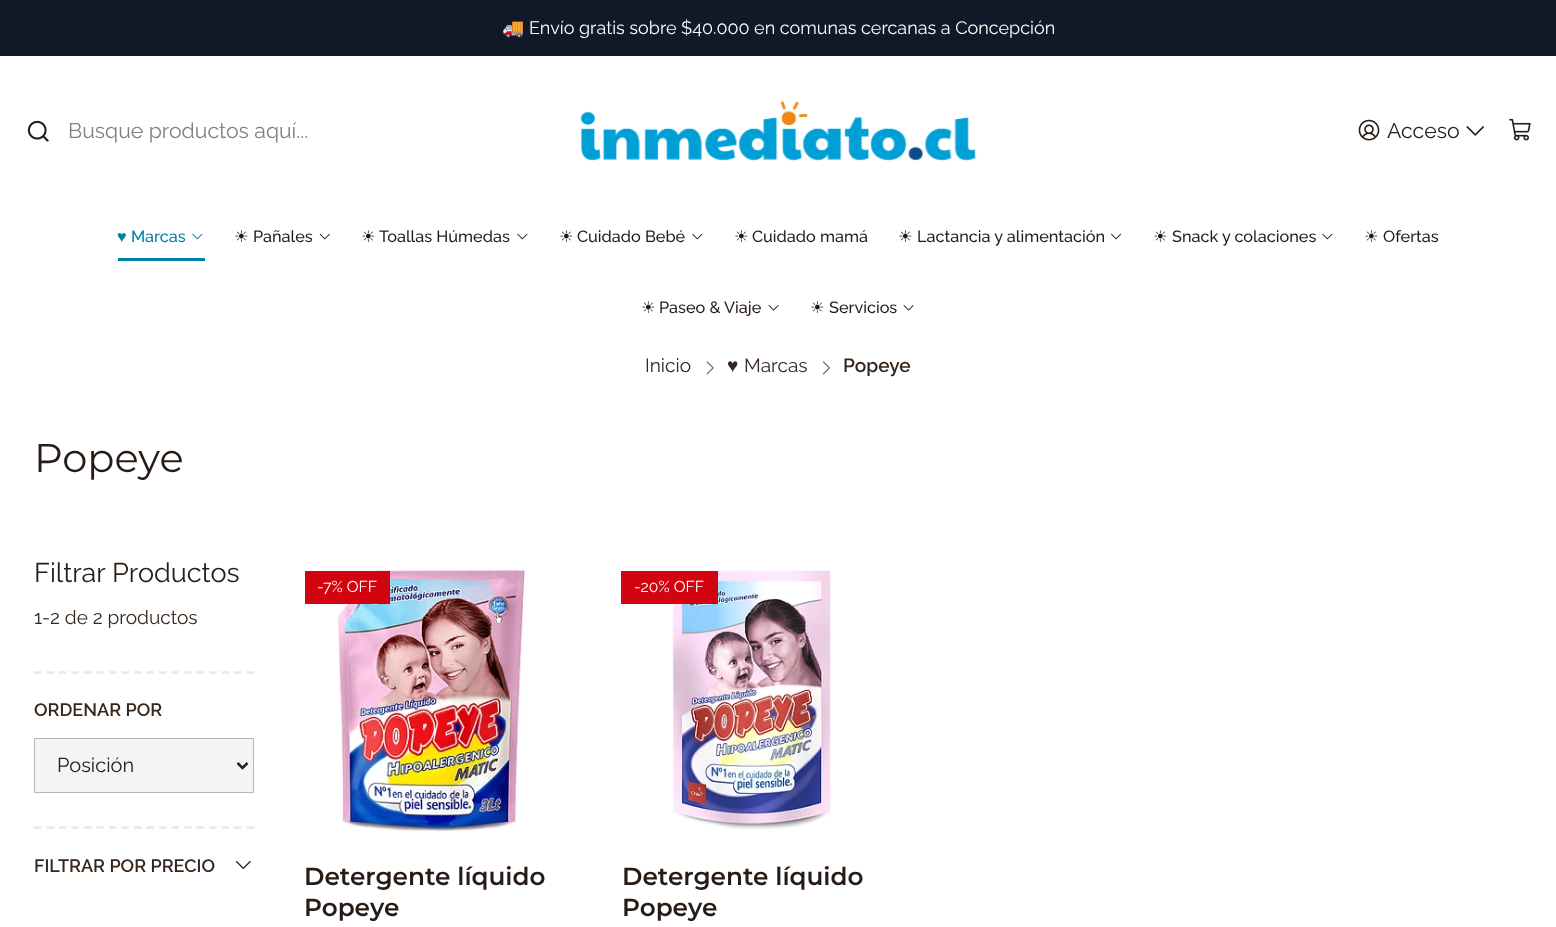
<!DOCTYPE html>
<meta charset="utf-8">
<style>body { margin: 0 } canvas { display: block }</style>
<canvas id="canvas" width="1556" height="927"></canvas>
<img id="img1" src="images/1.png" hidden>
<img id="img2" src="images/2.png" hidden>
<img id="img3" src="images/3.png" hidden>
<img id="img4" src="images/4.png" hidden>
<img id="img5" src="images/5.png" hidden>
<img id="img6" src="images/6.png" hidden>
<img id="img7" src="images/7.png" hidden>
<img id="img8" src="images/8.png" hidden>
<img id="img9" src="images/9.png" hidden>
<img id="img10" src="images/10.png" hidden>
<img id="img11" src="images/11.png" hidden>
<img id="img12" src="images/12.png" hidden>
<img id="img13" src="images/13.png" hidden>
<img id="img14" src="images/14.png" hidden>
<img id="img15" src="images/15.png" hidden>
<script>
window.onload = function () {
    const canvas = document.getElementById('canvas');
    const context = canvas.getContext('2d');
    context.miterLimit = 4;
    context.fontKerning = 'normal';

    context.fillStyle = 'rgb(255, 255, 255)';
    context.fillRect(0, 0, 1556, 927);
    context.fillStyle = 'rgb(17, 24, 39)';
    context.fillRect(0, 0, 1556, 56);
    context.drawImage(document.getElementById('img1'), 27, 120, 22, 22);
    context.drawImage(document.getElementById('img2'), 580, 100, 397, 61);
    context.drawImage(document.getElementById('img3'), 1358, 119, 22, 22);
    context.drawImage(document.getElementById('img4'), 1466, 126, 18, 10);
    context.drawImage(document.getElementById('img5'), 1509, 118, 22, 23);
    context.drawImage(document.getElementById('img6'), 192, 233, 11, 7);
    context.fillStyle = 'rgb(0, 126, 167)';
    context.fillRect(118, 258, 87, 3);
    context.drawImage(document.getElementById('img7'), 319, 233, 11, 7);
    context.drawImage(document.getElementById('img8'), 517, 233, 11, 7);
    context.drawImage(document.getElementById('img8'), 692, 233, 11, 7);
    context.drawImage(document.getElementById('img9'), 1111, 233, 11, 7);
    context.drawImage(document.getElementById('img8'), 1322, 233, 11, 7);
    context.drawImage(document.getElementById('img10'), 768, 305, 11, 6);
    context.drawImage(document.getElementById('img10'), 903, 305, 11, 6);
    context.drawImage(document.getElementById('img11'), 706, 361, 8, 14);
    context.drawImage(document.getElementById('img12'), 822, 361, 8, 14);
    context.beginPath();
    context.moveTo(34, 672.5);
    context.lineTo(254, 672.5);
    context.strokeStyle = 'rgb(233, 232, 232)';
    context.lineWidth = 2.5;
    context.setLineDash([7.5, 5]);
    context.stroke();
    context.fillStyle = 'rgb(244, 244, 244)';
    context.beginPath();
    context.rect(34.5, 738.5, 219, 54);
    context.fill();
    context.strokeStyle = 'rgb(181, 181, 181)';
    context.lineWidth = 1;
    context.setLineDash([]);
    context.stroke();
    context.beginPath();
    context.moveTo(237.5, 763);
    context.lineTo(242.5, 768);
    context.lineTo(247.5, 763);
    context.strokeStyle = 'rgb(34, 34, 34)';
    context.lineWidth = 2.5;
    context.stroke();
    context.beginPath();
    context.moveTo(34, 827.5);
    context.lineTo(254, 827.5);
    context.strokeStyle = 'rgb(233, 232, 232)';
    context.setLineDash([7.5, 5]);
    context.stroke();
    context.drawImage(document.getElementById('img13'), 235, 861, 16, 8);
    context.drawImage(document.getElementById('img14'), 337, 569, 188, 263);
    context.fillStyle = 'rgb(210, 4, 15)';
    context.fillRect(305, 571, 85, 33);
    context.drawImage(document.getElementById('img15'), 672, 570, 159, 260);
    context.fillRect(621, 571, 97, 33);
    context.font = '18px Noto Color Emoji';
    context.fillStyle = 'rgb(255, 255, 255)';
    context.fillText('🚚', 502, 34);
    context.font = '18px Raleway';
    context.fillText('Envío gratis sobre $40.000 en comunas cercanas a Concepción', 529, 34);
    context.font = '21.25px Raleway';
    context.fillStyle = 'rgb(133, 128, 124)';
    context.fillText('Busque productos aquí...', 68, 138);
    context.fillStyle = 'rgb(38, 28, 21)';
    context.fillText('Acceso', 1387, 138);
    context.font = '16.25px Liberation Sans';
    context.fillStyle = 'rgb(0, 126, 167)';
    context.fillText('♥', 117, 242);
    context.font = '500 16.25px Raleway';
    context.fillText('Marcas', 131, 242);
    context.font = '16.25px DejaVu Sans';
    context.fillStyle = 'rgb(38, 28, 21)';
    context.fillText('☀', 234, 242);
    context.font = '500 16.25px Raleway';
    context.fillText('Pañales', 253, 242);
    context.font = '16.25px DejaVu Sans';
    context.fillText('☀', 361, 242);
    context.font = '500 16.25px Raleway';
    context.fillText('Toallas Húmedas', 379, 242);
    context.font = '16.25px DejaVu Sans';
    context.fillText('☀', 559, 242);
    context.font = '500 16.25px Raleway';
    context.fillText('Cuidado Bebé', 577, 242);
    context.font = '16.25px DejaVu Sans';
    context.fillText('☀', 734, 242);
    context.font = '500 16.25px Raleway';
    context.fillText('Cuidado mamá', 752, 242);
    context.font = '16.25px DejaVu Sans';
    context.fillText('☀', 898, 242);
    context.font = '500 16.25px Raleway';
    context.fillText('Lactancia y alimentación', 917, 242);
    context.font = '16.25px DejaVu Sans';
    context.fillText('☀', 1153, 242);
    context.font = '500 16.25px Raleway';
    context.fillText('Snack y colaciones', 1172, 242);
    context.font = '16.25px DejaVu Sans';
    context.fillText('☀', 1364, 242);
    context.font = '500 16.25px Raleway';
    context.fillText('Ofertas', 1383, 242);
    context.font = '16.25px DejaVu Sans';
    context.fillText('☀', 641, 313);
    context.font = '500 16.25px Raleway';
    context.fillText('Paseo & Viaje', 659, 313);
    context.font = '16.25px DejaVu Sans';
    context.fillText('☀', 810, 313);
    context.font = '500 16.25px Raleway';
    context.fillText('Servicios', 829, 313);
    context.font = '19.1px Raleway';
    context.fillStyle = 'rgb(53, 39, 29)';
    context.fillText('Inicio', 645, 372);
    context.font = '19.1px Liberation Sans';
    context.fillText('♥', 727, 372);
    context.font = '19.1px Raleway';
    context.fillText('Marcas', 744, 372);
    context.font = '600 19.1px Raleway';
    context.fillText('Popeye', 843, 372);
    context.font = '40px Montserrat';
    context.fillStyle = 'rgb(38, 28, 21)';
    context.fillText('Popeye', 34, 472);
    context.font = '27px Raleway';
    context.fillText('Filtrar Productos', 34, 582);
    context.font = '19.1px Raleway';
    context.fillStyle = 'rgb(53, 39, 29)';
    context.fillText('1-2 de 2 productos', 34, 624);
    context.font = '600 18px Raleway';
    context.fillText('ORDENAR POR', 34, 716);
    context.font = '20px Raleway';
    context.fillStyle = 'rgb(34, 34, 34)';
    context.fillText('Posición', 57, 772);
    context.font = '600 18px Raleway';
    context.fillStyle = 'rgb(53, 39, 29)';
    context.fillText('FILTRAR POR PRECIO', 34, 872);
    context.font = '15.75px Raleway';
    context.fillStyle = 'rgb(255, 255, 255)';
    context.fillText('-7% OFF', 317, 592);
    context.font = '600 24.75px Montserrat';
    context.fillStyle = 'rgb(38, 28, 21)';
    context.fillText('Detergente líquido', 304, 885);
    context.fillText('Popeye', 304, 916);
    context.font = '15.75px Raleway';
    context.fillStyle = 'rgb(255, 255, 255)';
    context.fillText('-20% OFF', 634, 592);
    context.font = '600 24.75px Montserrat';
    context.fillStyle = 'rgb(38, 28, 21)';
    context.fillText('Detergente líquido', 622, 885);
    context.fillText('Popeye', 622, 916);
};
</script>
